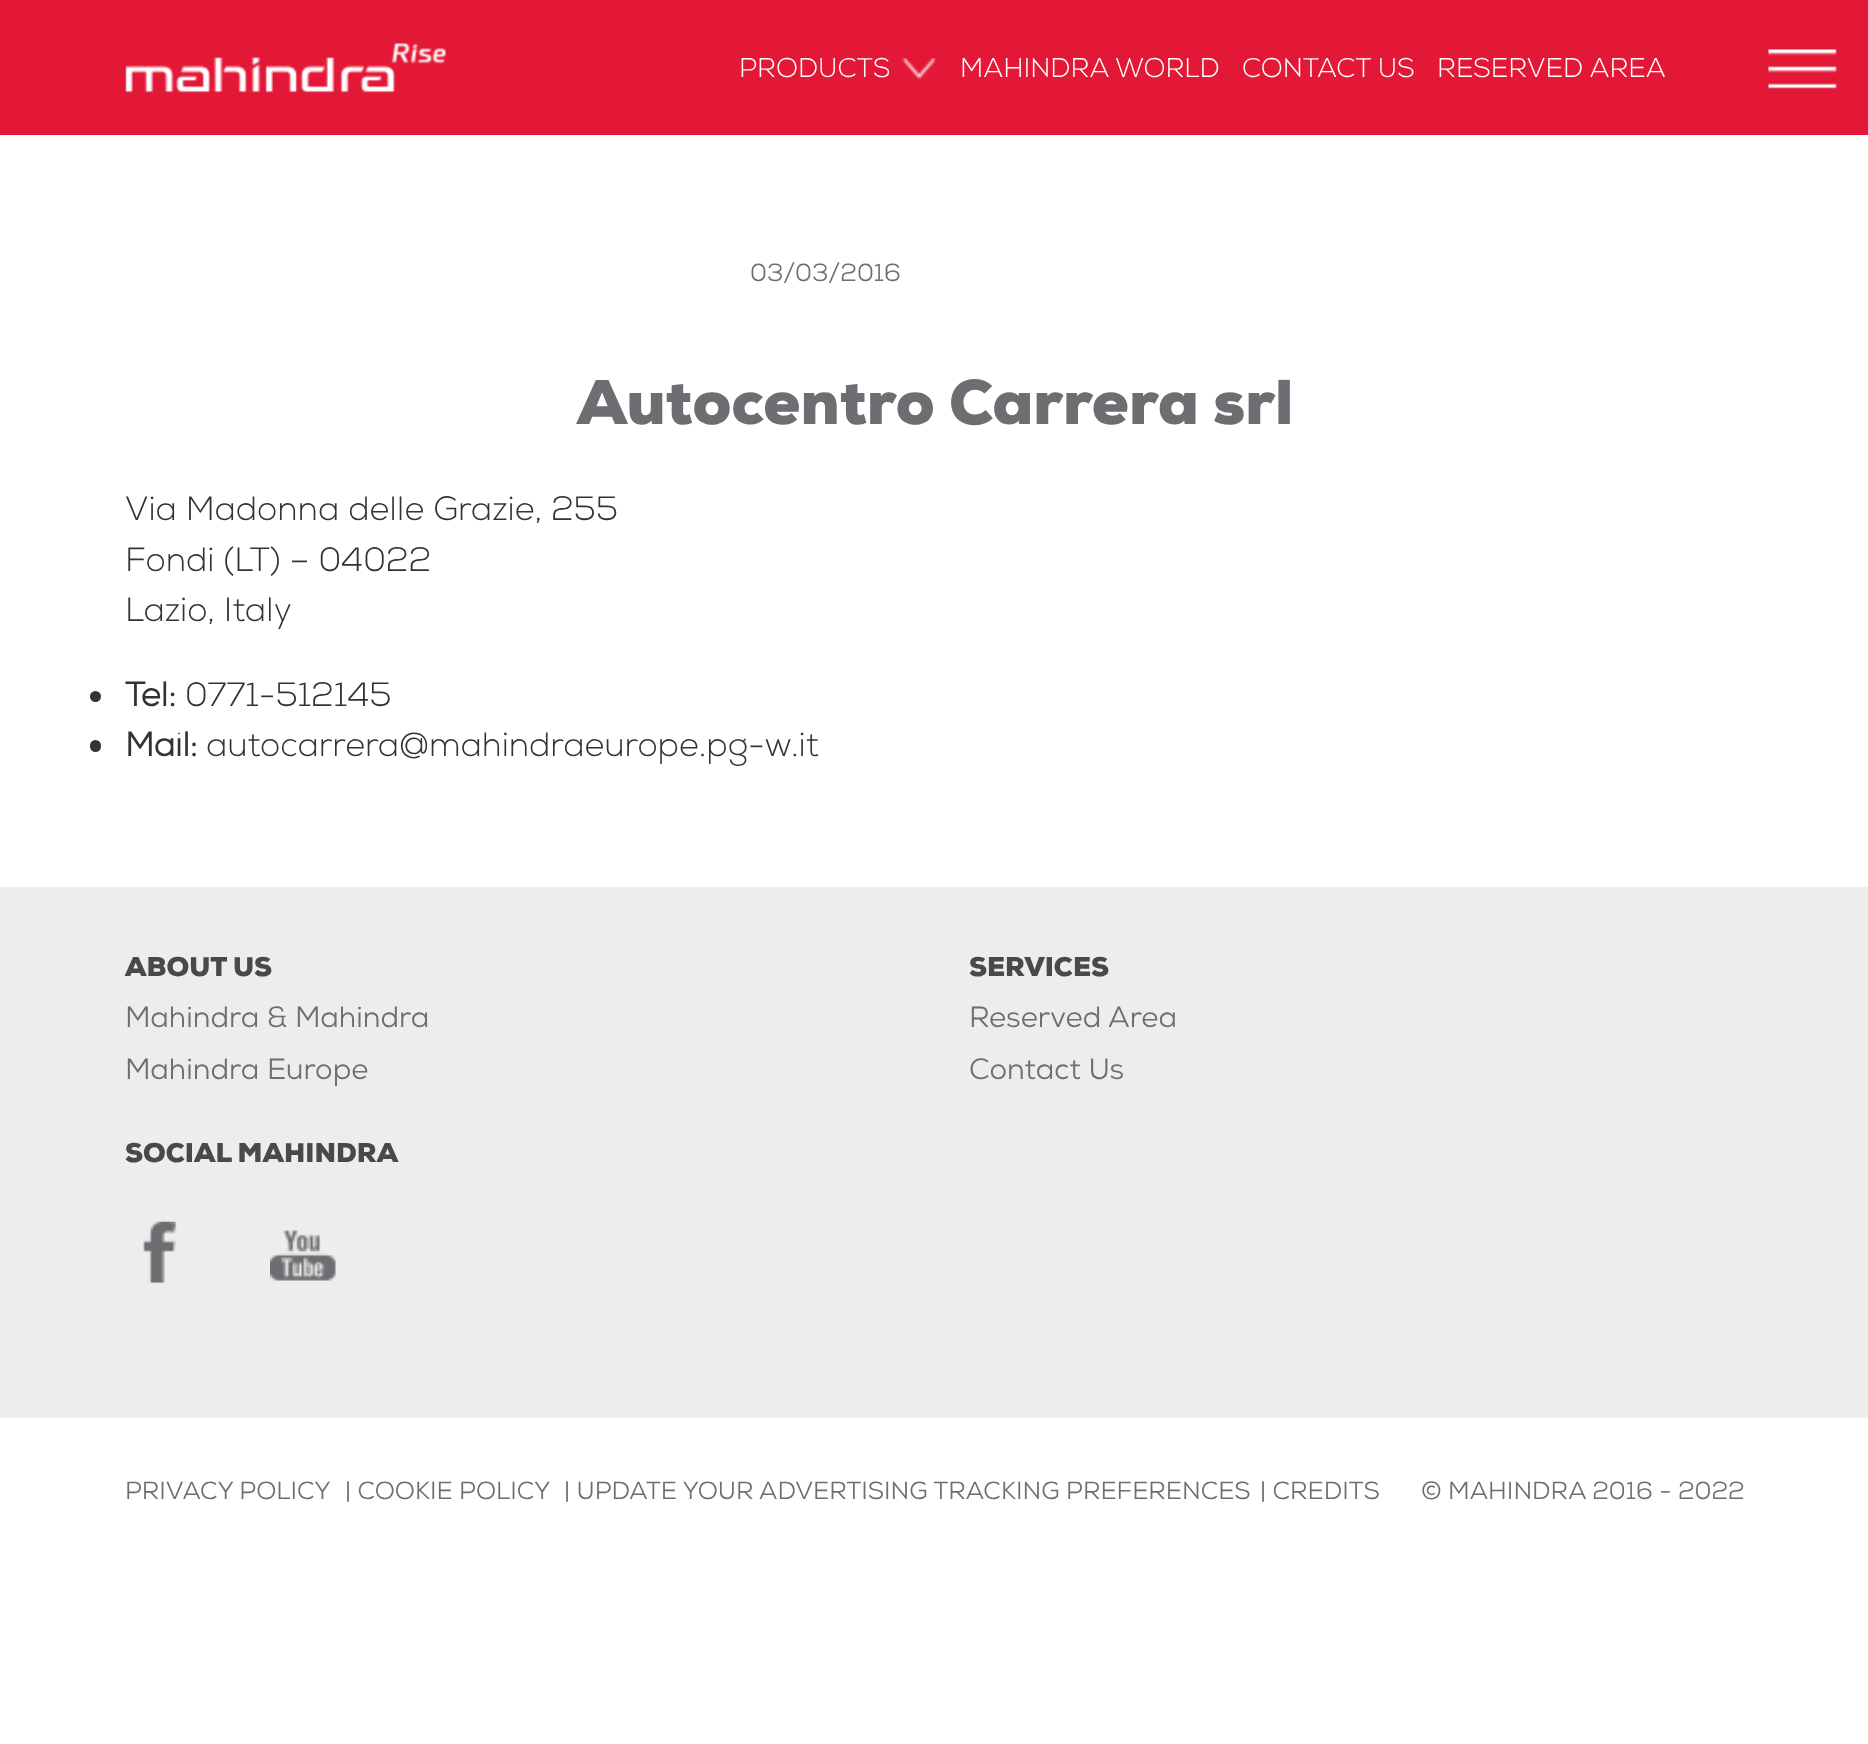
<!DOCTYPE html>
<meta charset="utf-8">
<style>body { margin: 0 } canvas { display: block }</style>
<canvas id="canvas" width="1868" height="1744"></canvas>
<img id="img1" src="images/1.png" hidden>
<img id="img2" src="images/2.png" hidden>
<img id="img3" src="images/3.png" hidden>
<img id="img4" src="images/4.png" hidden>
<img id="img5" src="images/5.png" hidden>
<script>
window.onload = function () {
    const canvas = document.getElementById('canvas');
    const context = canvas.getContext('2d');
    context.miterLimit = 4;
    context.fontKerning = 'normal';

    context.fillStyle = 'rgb(255, 255, 255)';
    context.fillRect(0, 0, 1868, 1744);
    context.fillStyle = 'rgb(227, 24, 55)';
    context.fillRect(0, 0, 1868, 135);
    context.drawImage(document.getElementById('img1'), 125, 43, 321, 50);
    context.drawImage(document.getElementById('img2'), 901, 58, 36, 22);
    context.drawImage(document.getElementById('img3'), 1768, 49, 69, 40);
    context.fillStyle = 'rgb(51, 51, 51)';
    context.beginPath();
    context.arc(95.5, 696.5, 5.5, 0, 2 * Math.PI);
    context.fill();
    context.beginPath();
    context.roundRect(90, 740, 11, 12, 5.5);
    context.fill();
    context.fillStyle = 'rgb(236, 237, 236)';
    context.fillRect(0, 887, 1868, 531);
    context.drawImage(document.getElementById('img4'), 143, 1221, 34, 63);
    context.drawImage(document.getElementById('img5'), 270, 1230, 66, 51);
    context.font = '300 27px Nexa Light';
    context.fillStyle = 'rgb(255, 255, 255)';
    context.fillText('PRODUCTS', 739, 77);
    context.fillText('MAHINDRA WORLD', 960, 77);
    context.fillText('CONTACT US', 1242, 77);
    context.fillText('RESERVED AREA', 1437, 77);
    context.font = '24.75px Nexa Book';
    context.fillStyle = 'rgb(109, 110, 113)';
    context.fillText('03/03/2016', 750, 281);
    context.font = '900 63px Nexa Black';
    context.fillText('Autocentro Carrera srl', 577, 424);
    context.font = '300 33.75px Nexa Light';
    context.fillStyle = 'rgb(51, 51, 51)';
    context.fillText('Via Madonna delle Grazie, 255', 125, 520);
    context.fillText('Fondi (LT) – 04022', 125, 571);
    context.fillText('Lazio, Italy', 125, 621);
    context.font = 'bold 33.75px Nexa Light';
    context.fillText('Tel:', 125, 706);
    context.font = '300 33.75px Nexa Light';
    context.fillText('0771-512145', 185, 706);
    context.font = 'bold 33.75px Nexa Light';
    context.fillText('Mail:', 125, 756);
    context.font = '300 33.75px Nexa Light';
    context.fillText('autocarrera@mahindraeurope.pg-w.it', 206, 756);
    context.font = '900 27px Nexa Black';
    context.fillStyle = 'rgb(73, 73, 73)';
    context.fillText('ABOUT US', 125, 976);
    context.font = '29.25px Nexa Book';
    context.fillStyle = 'rgb(109, 110, 113)';
    context.fillText('Mahindra & Mahindra', 125, 1027);
    context.fillText('Mahindra Europe', 125, 1079);
    context.font = '900 27px Nexa Black';
    context.fillStyle = 'rgb(73, 73, 73)';
    context.fillText('SERVICES', 969, 976);
    context.font = '29.25px Nexa Book';
    context.fillStyle = 'rgb(109, 110, 113)';
    context.fillText('Reserved Area', 969, 1027);
    context.fillText('Contact Us', 969, 1079);
    context.font = '900 27px Nexa Black';
    context.fillStyle = 'rgb(73, 73, 73)';
    context.fillText('SOCIAL MAHINDRA', 125, 1162);
    context.font = '24.75px Nexa Book';
    context.fillStyle = 'rgb(109, 110, 113)';
    context.fillText('PRIVACY POLICY', 125, 1499);
    context.fillText('| COOKIE POLICY', 345, 1499);
    context.fillText('| UPDATE YOUR ADVERTISING TRACKING PREFERENCES', 564, 1499);
    context.fillText('| CREDITS', 1260, 1499);
    context.fillText('© MAHINDRA 2016 - 2022', 1421, 1499);
};
</script>
